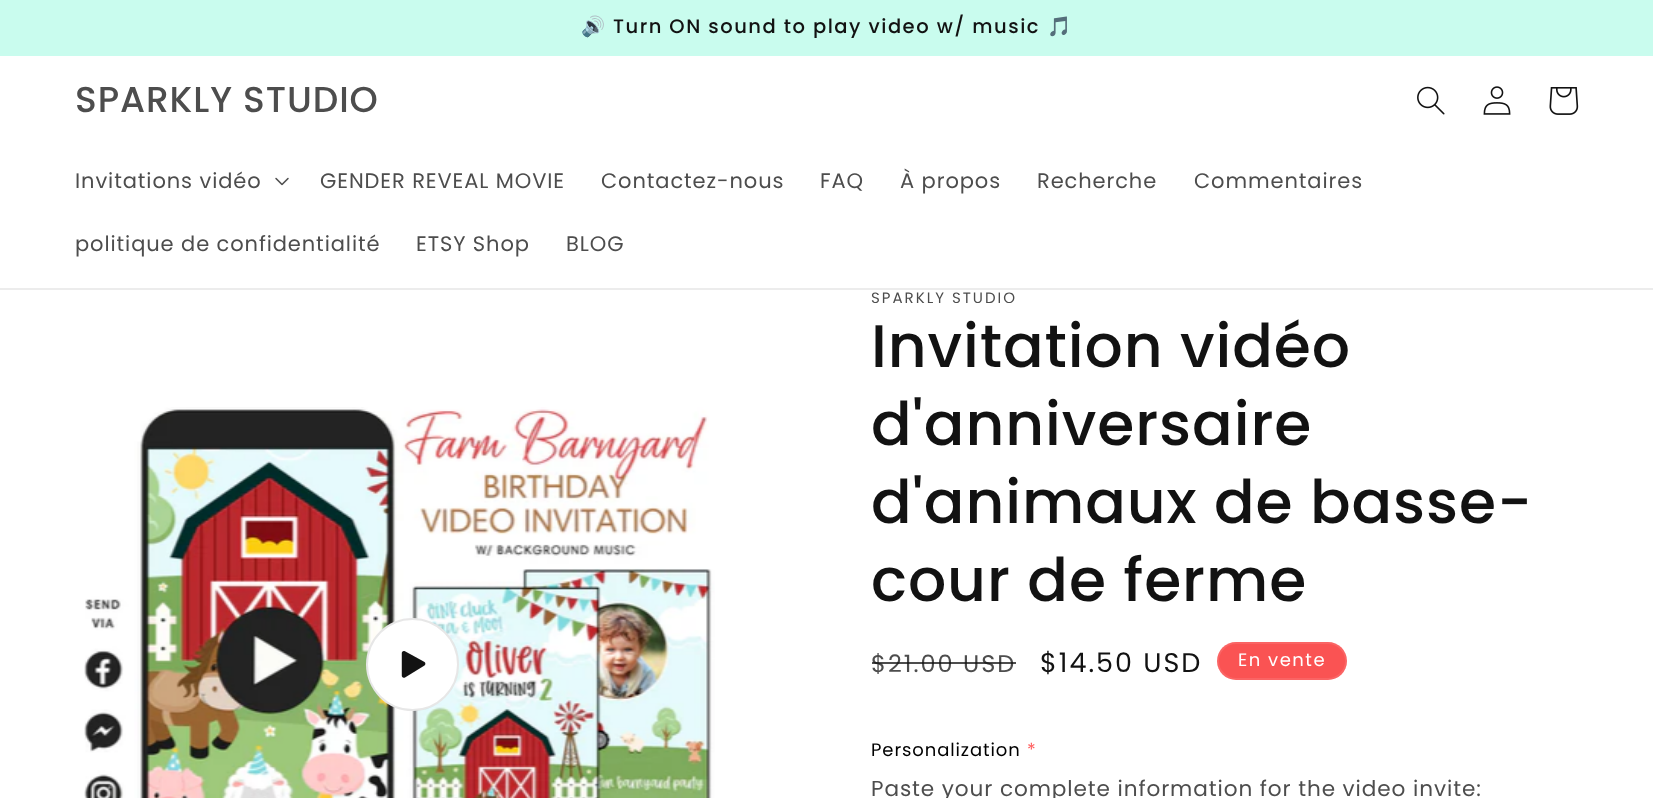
<!DOCTYPE html>
<meta charset="utf-8">
<style>body { margin: 0 } canvas { display: block }</style>
<canvas id="canvas" width="1653" height="798"></canvas>
<img id="img1" src="images/1.png" hidden>
<img id="img2" src="images/2.png" hidden>
<img id="img3" src="images/3.png" hidden>
<img id="img4" src="images/4.png" hidden>
<img id="img5" src="images/5.png" hidden>
<img id="img6" src="images/6.png" hidden>
<script>
window.onload = function () {
    const canvas = document.getElementById('canvas');
    const context = canvas.getContext('2d');
    context.miterLimit = 4;
    context.fontKerning = 'normal';

    context.fillStyle = 'rgb(255, 255, 255)';
    context.fillRect(0, 0, 1653, 798);
    context.fillStyle = 'rgb(201, 252, 238)';
    context.fillRect(0, 0, 1653, 56);
    context.fillStyle = 'rgb(236, 236, 236)';
    context.fillRect(0, 288, 1653, 2);
    context.drawImage(document.getElementById('img1'), 1417, 86, 28, 29);
    context.drawImage(document.getElementById('img2'), 1483, 86, 28, 29);
    context.drawImage(document.getElementById('img3'), 1549, 87, 30, 28);
    context.drawImage(document.getElementById('img4'), 275, 177, 14, 9);
    context.drawImage(document.getElementById('img5'), 84, 407, 631, 391);
    context.fillStyle = 'rgb(255, 255, 255)';
    context.beginPath();
    context.arc(412.5, 664.5, 46.5, 0, 2 * Math.PI);
    context.fill();
    context.beginPath();
    context.arc(412.5, 664.5, 45.5, 0, 2 * Math.PI);
    context.strokeStyle = 'rgba(18, 18, 18, 0.1)';
    context.lineWidth = 2;
    context.stroke();
    context.drawImage(document.getElementById('img6'), 401, 651, 25, 27);
    context.fillStyle = 'rgb(250, 83, 83)';
    context.beginPath();
    context.roundRect(1217, 642, 130, 38, 19);
    context.fill();
    context.beginPath();
    context.roundRect(1218, 643, 128, 36, 18);
    context.strokeStyle = 'rgba(255, 255, 255, 0.1)';
    context.stroke();
    context.letterSpacing = '1.5px';
    context.font = '19.5px Noto Color Emoji';
    context.fillStyle = 'rgb(18, 18, 18)';
    context.fillText('🔊', 581, 33);
    context.font = '500 19.5px Poppins';
    context.fillText('Turn ON sound to play video w/ music', 613, 33);
    context.font = '19.5px Noto Color Emoji';
    context.fillText('🎵', 1047, 33);
    context.letterSpacing = '0.9px';
    context.font = '500 36px Poppins';
    context.fillStyle = 'rgb(77, 77, 77)';
    context.fillText('SPARKLY STUDIO', 75, 112);
    context.font = '21px Poppins';
    context.fillText('Invitations vidéo', 75, 188);
    context.fillText('GENDER REVEAL MOVIE', 320, 188);
    context.fillText('Contactez-nous', 601, 188);
    context.fillText('FAQ', 820, 188);
    context.fillText('À propos', 900, 188);
    context.fillText('Recherche', 1037, 188);
    context.fillText('Commentaires', 1194, 188);
    context.fillText('politique de confidentialité', 75, 251);
    context.fillText('ETSY Shop', 416, 251);
    context.fillText('BLOG', 566, 251);
    context.letterSpacing = '2px';
    context.font = '15px Poppins';
    context.fillText('SPARKLY STUDIO', 871, 303);
    context.letterSpacing = '0.9px';
    context.font = '500 60px Poppins';
    context.fillStyle = 'rgb(18, 18, 18)';
    context.fillText('Invitation vidéo', 871, 367);
    context.fillText('d\'anniversaire', 871, 445);
    context.fillText('d\'animaux de basse-', 871, 523);
    context.fillText('cour de ferme', 871, 601);
    context.letterSpacing = '2px';
    context.font = '24px Poppins';
    context.fillStyle = 'rgb(77, 77, 77)';
    context.fillText('$21.00 USD', 871, 672);
    context.fillStyle = 'rgba(18, 18, 18, 0.75)';
    context.fillRect(872, 662, 144, 2);
    context.font = '27px Poppins';
    context.fillStyle = 'rgb(18, 18, 18)';
    context.fillText('$14.50 USD', 1040, 672);
    context.letterSpacing = '1.5px';
    context.font = '18px Poppins';
    context.fillStyle = 'rgb(255, 255, 255)';
    context.fillText('En vente', 1238, 666);
    context.letterSpacing = '0.9px';
    context.fillStyle = 'rgb(0, 0, 0)';
    context.fillText('Personalization', 871, 756);
    context.fillStyle = 'rgb(255, 93, 93)';
    context.fillText('*', 1027, 756);
    context.font = '21.6px Poppins';
    context.fillStyle = 'rgb(77, 77, 77)';
    context.fillText('Paste your complete information for the video invite:', 871, 796);
};
</script>
